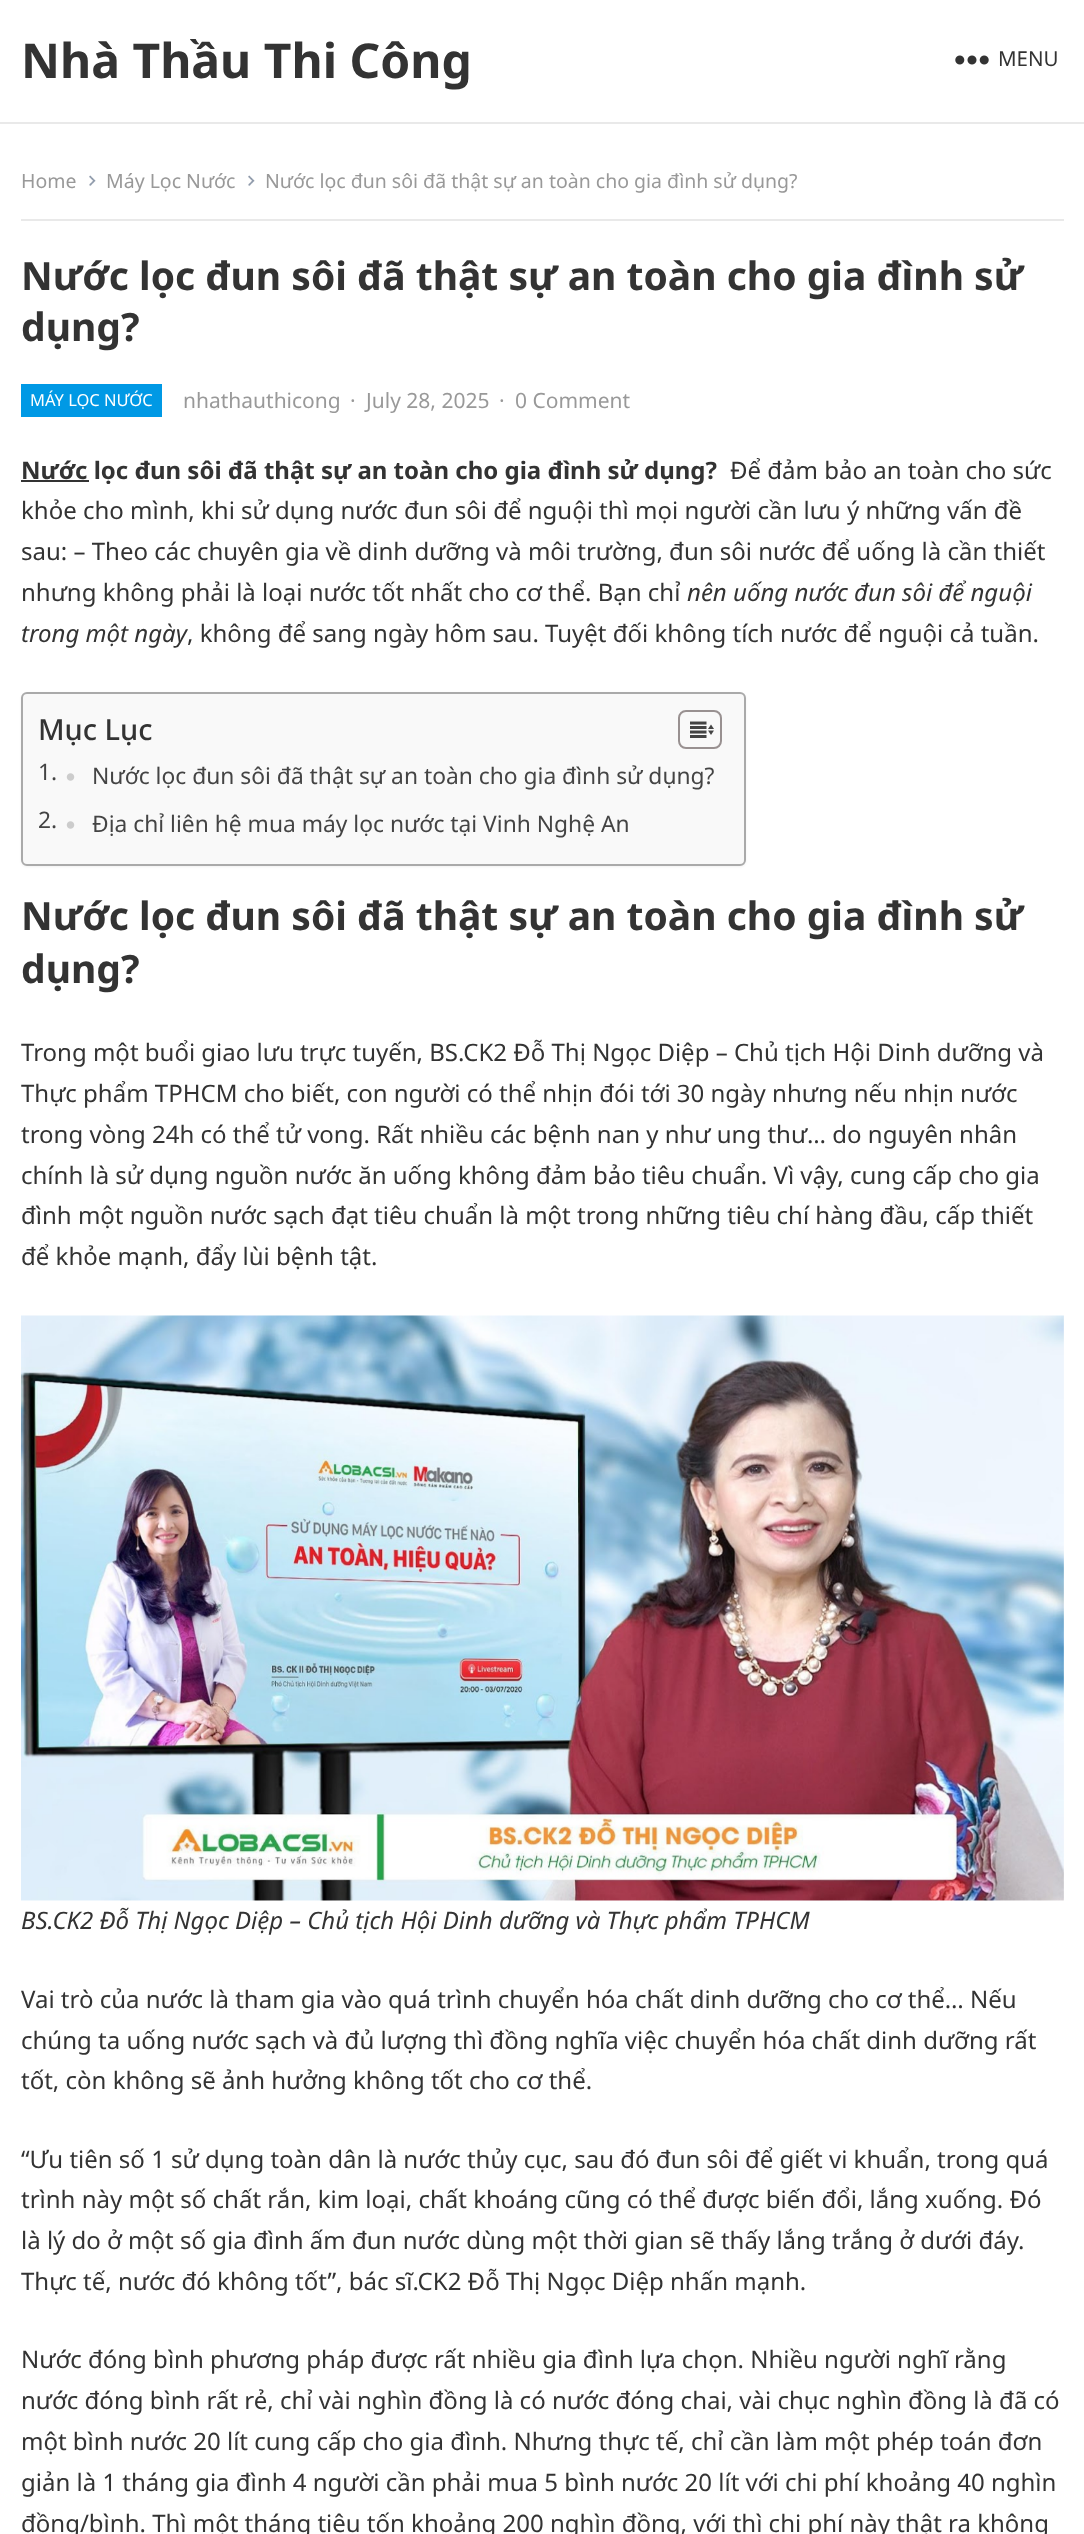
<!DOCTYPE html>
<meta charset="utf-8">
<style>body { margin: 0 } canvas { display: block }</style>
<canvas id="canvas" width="1084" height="2534"></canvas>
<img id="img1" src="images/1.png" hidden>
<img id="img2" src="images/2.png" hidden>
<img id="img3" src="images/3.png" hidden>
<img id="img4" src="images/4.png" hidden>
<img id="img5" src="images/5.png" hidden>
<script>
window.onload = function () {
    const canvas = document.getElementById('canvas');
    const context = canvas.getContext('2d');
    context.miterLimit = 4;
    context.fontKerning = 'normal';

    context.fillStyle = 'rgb(255, 255, 255)';
    context.fillRect(0, 0, 1084, 2534);
    context.fillStyle = 'rgb(233, 233, 233)';
    context.fillRect(0, 122, 1084, 2);
    context.drawImage(document.getElementById('img1'), 955, 55, 34, 10);
    context.fillRect(21, 219, 1043, 2);
    context.drawImage(document.getElementById('img2'), 89, 175, 7, 11);
    context.drawImage(document.getElementById('img2'), 248, 175, 7, 11);
    context.fillStyle = 'rgb(0, 153, 229)';
    context.fillRect(21, 384, 141, 33);
    context.fillStyle = 'rgb(51, 51, 51)';
    context.fillRect(21, 480, 68, 2);
    context.fillStyle = 'rgba(0, 0, 0, 0.05)';
    context.filter = 'blur(1px)';
    context.beginPath();
    context.roundRect(21, 693, 725, 174, 6);
    context.fill();
    context.filter = 'none';
    context.fillStyle = 'rgb(249, 249, 249)';
    context.beginPath();
    context.roundRect(22, 693, 723, 172, 5);
    context.fill();
    context.strokeStyle = 'rgb(170, 170, 170)';
    context.lineWidth = 2;
    context.stroke();
    context.beginPath();
    context.roundRect(679, 711, 42, 37, 7);
    context.strokeStyle = 'rgb(153, 145, 145)';
    context.stroke();
    context.drawImage(document.getElementById('img3'), 690, 721, 24, 17);
    context.drawImage(document.getElementById('img4'), 66, 773, 9, 8);
    context.drawImage(document.getElementById('img4'), 66, 821, 9, 8);
    context.drawImage(document.getElementById('img5'), 21, 1315, 1043, 586);
    context.font = 'bold 48px Noto Sans';
    context.fillStyle = 'rgb(51, 51, 51)';
    context.fillText('Nhà Thầu Thi Công', 21, 78);
    context.font = '20.5px Noto Sans';
    context.fillText('MENU', 998, 66);
    context.font = '19.5px Noto Sans';
    context.fillStyle = 'rgb(153, 153, 153)';
    context.fillText('Home', 21, 188);
    context.fillText('Máy Lọc Nước', 106, 188);
    context.fillText('Nước lọc đun sôi đã thật sự an toàn cho gia đình sử dụng?', 265, 188);
    context.font = 'bold 39px Noto Sans';
    context.fillStyle = 'rgb(51, 51, 51)';
    context.fillText('Nước lọc đun sôi đã thật sự an toàn cho gia đình sử', 21, 290);
    context.fillText('dụng?', 21, 341);
    context.font = '16.5px Noto Sans';
    context.fillStyle = 'rgb(255, 255, 255)';
    context.fillText('MÁY LỌC NƯỚC', 30, 406);
    context.font = '21px Noto Sans';
    context.fillStyle = 'rgb(153, 153, 153)';
    context.fillText('nhathauthicong', 183, 408);
    context.fillText('·', 350, 408);
    context.fillText('July 28, 2025', 366, 408);
    context.fillText('·', 499, 408);
    context.fillText('0 Comment', 515, 408);
    context.font = 'bold 24px Noto Sans';
    context.fillStyle = 'rgb(51, 51, 51)';
    context.fillText('Nước lọc đun sôi đã thật sự an toàn cho gia đình sử dụng?', 21, 479);
    context.font = '24px Noto Sans';
    context.fillText('Để đảm bảo an toàn cho sức', 730, 479);
    context.fillText('khỏe cho mình, khi sử dụng nước đun sôi để nguội thì mọi người cần lưu ý những vấn đề', 21, 519);
    context.fillText('sau: – Theo các chuyên gia về dinh dưỡng và môi trường, đun sôi nước để uống là cần thiết', 21, 560);
    context.fillText('nhưng không phải là loại nước tốt nhất cho cơ thể. Bạn chỉ', 21, 601);
    context.font = 'italic 24px Noto Sans';
    context.fillText('nên uống nước đun sôi để nguội', 687, 601);
    context.fillText('trong một ngày', 21, 642);
    context.font = '24px Noto Sans';
    context.fillText(', không để sang ngày hôm sau. Tuyệt đối không tích nước để nguội cả tuần.', 187, 642);
    context.font = '500 29px Noto Sans';
    context.fillText('Mục Lục', 38, 740);
    context.font = '22.8px Noto Sans';
    context.fillStyle = 'rgb(68, 68, 68)';
    context.fillText('1.', 38, 780);
    context.fillText('Nước lọc đun sôi đã thật sự an toàn cho gia đình sử dụng?', 92, 784);
    context.fillText('2.', 38, 828);
    context.fillText('Địa chỉ liên hệ mua máy lọc nước tại Vinh Nghệ An', 92, 832);
    context.font = 'bold 39px Noto Sans';
    context.fillStyle = 'rgb(51, 51, 51)';
    context.fillText('Nước lọc đun sôi đã thật sự an toàn cho gia đình sử', 21, 930);
    context.fillText('dụng?', 21, 983);
    context.font = '24px Noto Sans';
    context.fillText('Trong một buổi giao lưu trực tuyến, BS.CK2 Đỗ Thị Ngọc Diệp – Chủ tịch Hội Dinh dưỡng và', 21, 1061);
    context.fillText('Thực phẩm TPHCM cho biết, con người có thể nhịn đói tới 30 ngày nhưng nếu nhịn nước', 21, 1102);
    context.fillText('trong vòng 24h có thể tử vong. Rất nhiều các bệnh nan y như ung thư… do nguyên nhân', 21, 1143);
    context.fillText('chính là sử dụng nguồn nước ăn uống không đảm bảo tiêu chuẩn. Vì vậy, cung cấp cho gia', 21, 1184);
    context.fillText('đình một nguồn nước sạch đạt tiêu chuẩn là một trong những tiêu chí hàng đầu, cấp thiết', 21, 1224);
    context.fillText('để khỏe mạnh, đẩy lùi bệnh tật.', 21, 1265);
    context.font = 'italic 24px Noto Sans';
    context.fillText('BS.CK2 Đỗ Thị Ngọc Diệp – Chủ tịch Hội Dinh dưỡng và Thực phẩm TPHCM', 21, 1929);
    context.font = '24px Noto Sans';
    context.fillText('Vai trò của nước là tham gia vào quá trình chuyển hóa chất dinh dưỡng cho cơ thể… Nếu', 21, 2008);
    context.fillText('chúng ta uống nước sạch và đủ lượng thì đồng nghĩa việc chuyển hóa chất dinh dưỡng rất', 21, 2049);
    context.fillText('tốt, còn không sẽ ảnh hưởng không tốt cho cơ thể.', 21, 2089);
    context.fillText('“Ưu tiên số 1 sử dụng toàn dân là nước thủy cục, sau đó đun sôi để giết vi khuẩn, trong quá', 21, 2168);
    context.fillText('trình này một số chất rắn, kim loại, chất khoáng cũng có thể được biến đổi, lắng xuống. Đó', 21, 2208);
    context.fillText('là lý do ở một số gia đình ấm đun nước dùng một thời gian sẽ thấy lắng trắng ở dưới đáy.', 21, 2249);
    context.fillText('Thực tế, nước đó không tốt”, bác sĩ.CK2 Đỗ Thị Ngọc Diệp nhấn mạnh.', 21, 2290);
    context.fillText('Nước đóng bình phương pháp được rất nhiều gia đình lựa chọn. Nhiều người nghĩ rằng', 21, 2368);
    context.fillText('nước đóng bình rất rẻ, chỉ vài nghìn đồng là có nước đóng chai, vài chục nghìn đồng là đã có', 21, 2409);
    context.fillText('một bình nước 20 lít cung cấp cho gia đình. Nhưng thực tế, chỉ cần làm một phép toán đơn', 21, 2450);
    context.fillText('giản là 1 tháng gia đình 4 người cần phải mua 5 bình nước 20 lít với chi phí khoảng 40 nghìn', 21, 2491);
    context.fillText('đồng/bình. Thì một tháng tiêu tốn khoảng 200 nghìn đồng, với thì chi phí này thật ra không', 21, 2532);
};
</script>
